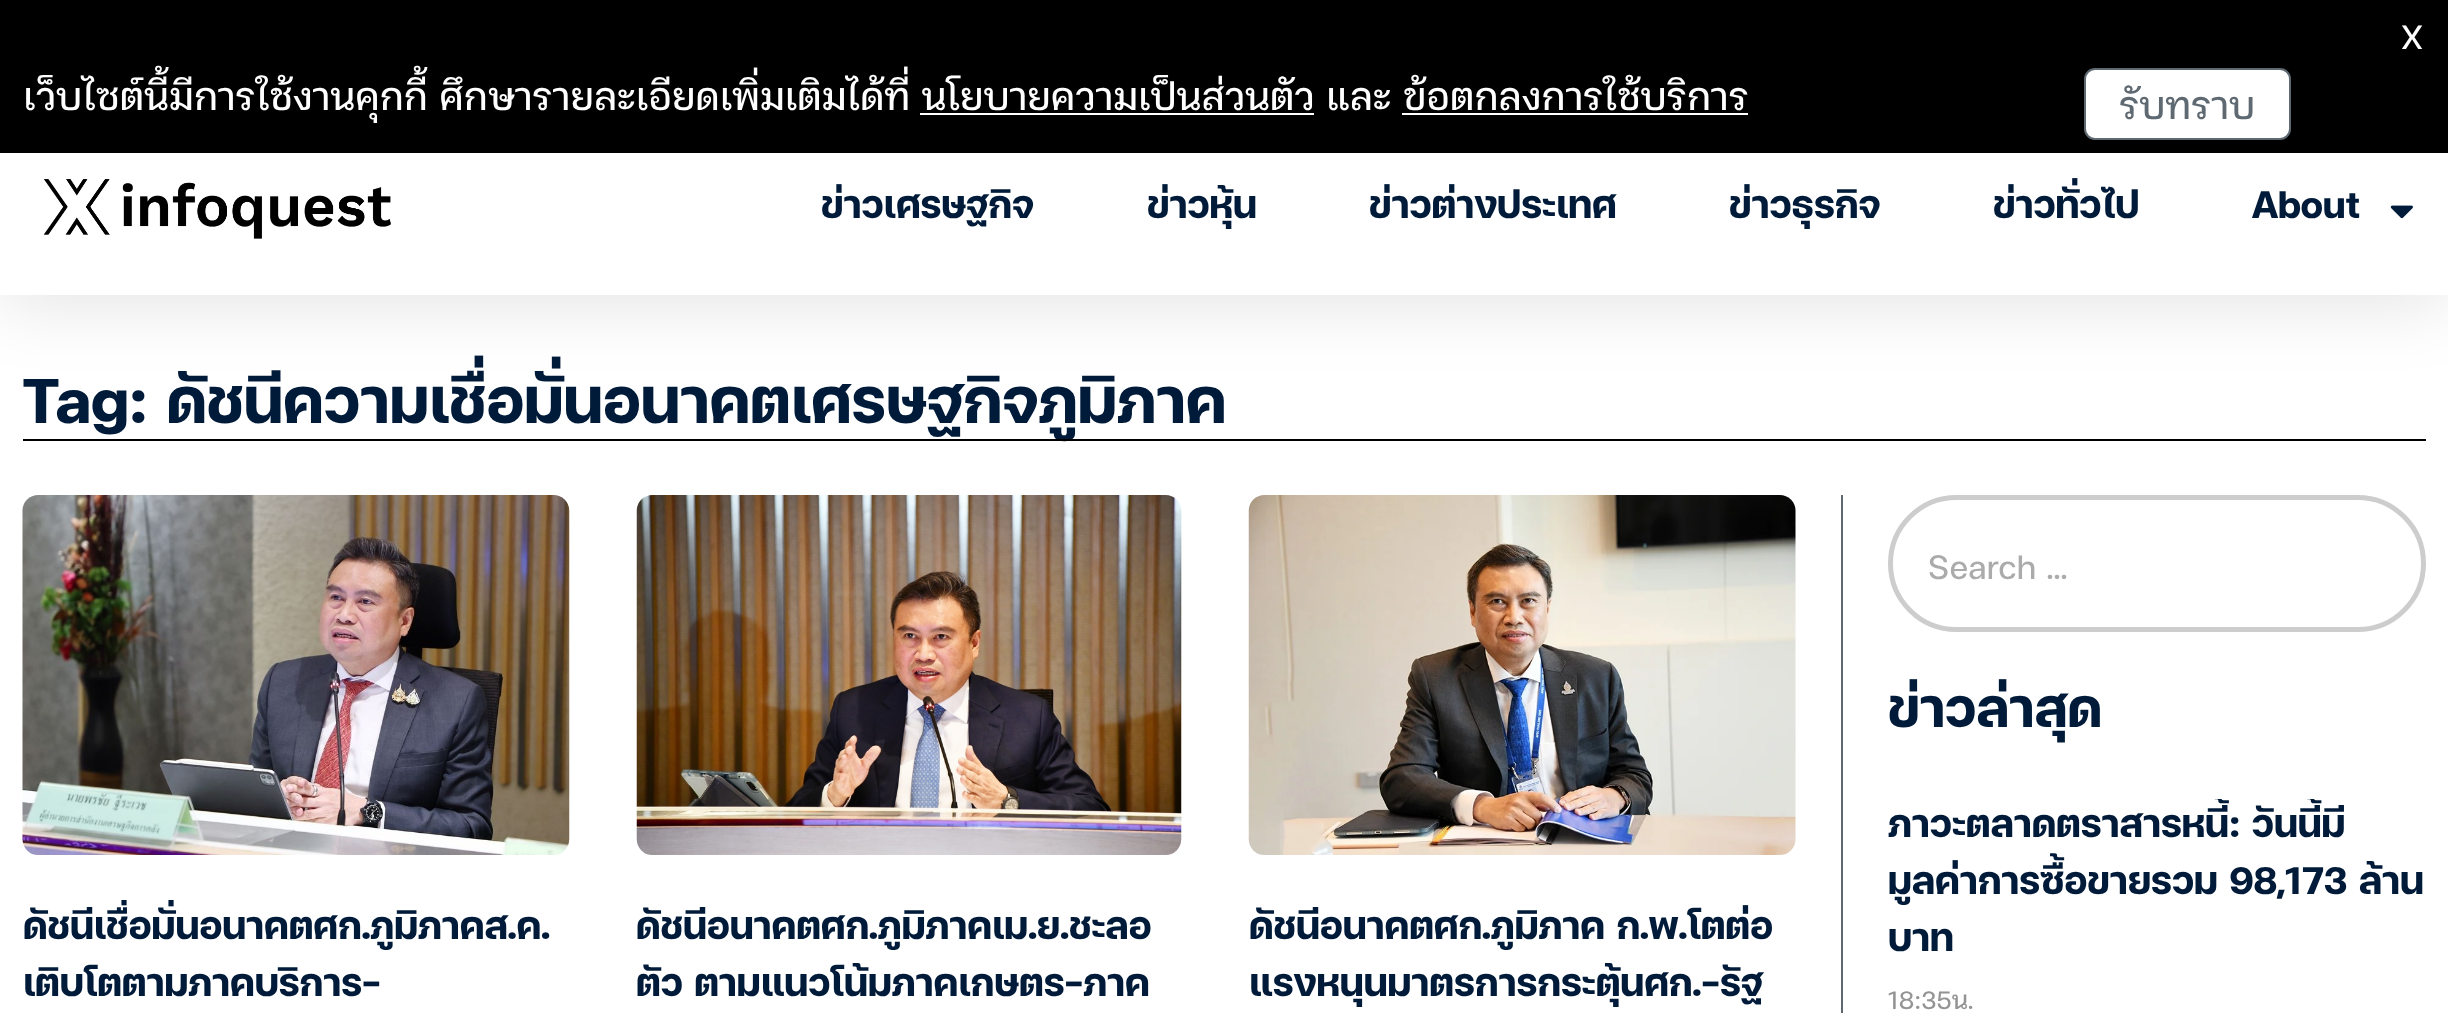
<!DOCTYPE html>
<meta charset="utf-8">
<style>body { margin: 0 } canvas { display: block }</style>
<canvas id="canvas" width="2448" height="1013"></canvas>
<img id="img1" src="images/1.png" hidden>
<img id="img2" src="images/2.png" hidden>
<img id="img3" src="images/3.png" hidden>
<img id="img4" src="images/4.png" hidden>
<img id="img5" src="images/5.png" hidden>
<script>
window.onload = function () {
    const canvas = document.getElementById('canvas');
    const context = canvas.getContext('2d');
    context.miterLimit = 4;
    context.fontKerning = 'normal';

    context.fillStyle = 'rgb(255, 255, 255)';
    context.fillRect(0, 0, 2448, 1013);
    context.fillStyle = 'rgba(0, 0, 0, 0.1)';
    context.filter = 'blur(34px)';
    context.beginPath();
    context.rect(0, 11, 2448, 295);
    context.fill();
    context.filter = 'none';
    context.fillStyle = 'rgb(0, 0, 0)';
    context.fillRect(0, 0, 2448, 153);
    context.fillStyle = 'rgb(255, 255, 255)';
    context.fillRect(920, 113, 394, 2);
    context.fillRect(1402, 113, 346, 2);
    context.beginPath();
    context.roundRect(2085, 69, 205, 70, 10);
    context.fill();
    context.strokeStyle = 'rgb(95, 105, 113)';
    context.lineWidth = 2;
    context.stroke();
    context.fillRect(0, 153, 2448, 142);
    context.drawImage(document.getElementById('img1'), 43, 179, 348, 60);
    context.drawImage(document.getElementById('img2'), 2390, 205, 23, 14);
    context.drawImage(document.getElementById('img3'), 22, 495, 548, 360);
    context.drawImage(document.getElementById('img4'), 636, 495, 546, 360);
    context.drawImage(document.getElementById('img5'), 1248, 495, 548, 360);
    context.fillStyle = 'rgb(95, 105, 113)';
    context.fillRect(1841, 495, 2, 518);
    context.beginPath();
    context.roundRect(1890.5, 497.5, 533, 132, 66);
    context.strokeStyle = 'rgb(205, 205, 205)';
    context.lineWidth = 5;
    context.stroke();
    context.font = '33.75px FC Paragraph';
    context.fillStyle = 'rgb(255, 255, 255)';
    context.fillText('X', 2401, 49);
    context.font = '38.25px FC Paragraph';
    context.fillText('เว็บไซต์นี้มีการใช้งานคุกกี้ ศึกษารายละเอียดเพิ่มเติมได้ที่ นโยบายความเป็นส่วนตัว และ ข้อตกลงการใช้บริการ', 23, 110);
    context.fillStyle = 'rgb(95, 105, 113)';
    context.fillText('รับทราบ', 2119, 119);
    context.font = 'bold 38.25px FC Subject';
    context.fillStyle = 'rgb(0, 27, 57)';
    context.fillText('ข่าวเศรษฐกิจ', 821, 218);
    context.fillText('ข่าวหุ้น', 1147, 218);
    context.fillText('ข่าวต่างประเทศ', 1369, 218);
    context.fillText('ข่าวธุรกิจ', 1729, 218);
    context.fillText('ข่าวทั่วไป', 1993, 218);
    context.fillText('About', 2252, 218);
    context.font = 'bold 63px FC Subject';
    context.fillText('Tag: ดัชนีความเชื่อมั่นอนาคตเศรษฐกิจภูมิภาค', 23, 423);
    context.fillStyle = 'rgb(0, 0, 0)';
    context.fillRect(23, 439, 2403, 2);
    context.save();
    context.beginPath();
    context.rect(23, 900, 546, 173);
    context.clip();
    context.font = 'bold 38.25px FC Subject';
    context.fillStyle = 'rgb(0, 27, 57)';
    context.fillText('ดัชนีเชื่อมั่นอนาคตศก.ภูมิภาคส.ค.', 23, 939);
    context.fillText('เติบโตตามภาคบริการ-', 23, 996);
    context.restore();
    context.save();
    context.beginPath();
    context.rect(637, 900, 544, 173);
    context.clip();
    context.font = 'bold 38.25px FC Subject';
    context.fillStyle = 'rgb(0, 27, 57)';
    context.fillText('ดัชนีอนาคตศก.ภูมิภาคเม.ย.ชะลอ', 636, 939);
    context.fillText('ตัว ตามแนวโน้มภาคเกษตร-ภาค', 636, 996);
    context.restore();
    context.save();
    context.beginPath();
    context.rect(1249, 900, 547, 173);
    context.clip();
    context.font = 'bold 38.25px FC Subject';
    context.fillStyle = 'rgb(0, 27, 57)';
    context.fillText('ดัชนีอนาคตศก.ภูมิภาค ก.พ.โตต่อ', 1249, 939);
    context.restore();
    context.font = 'bold 38.25px FC Subject';
    context.fillStyle = 'rgb(0, 27, 57)';
    context.fillText('แรงหนุนมาตรการกระตุ้นศก.-รัฐ', 1249, 996);
    context.font = '33.75px FC Paragraph';
    context.fillStyle = 'rgb(171, 171, 171)';
    context.fillText('Search ...', 1928, 579);
    context.font = 'bold 54px FC Subject';
    context.fillStyle = 'rgb(0, 27, 57)';
    context.fillText('ข่าวล่าสุด', 1888, 727);
    context.save();
    context.beginPath();
    context.rect(1888, 799, 538, 171);
    context.clip();
    context.font = 'bold 38.25px FC Subject';
    context.fillText('ภาวะตลาดตราสารหนี้: วันนี้มี', 1888, 837);
    context.fillText('มูลค่าการซื้อขายรวม 98,173 ล้าน', 1888, 894);
    context.restore();
    context.font = 'bold 38.25px FC Subject';
    context.fillText('บาท', 1888, 951);
    context.font = '25px FC Paragraph';
    context.fillStyle = 'rgb(148, 148, 148)';
    context.fillText('18:35น.', 1888, 1009);
};
</script>
